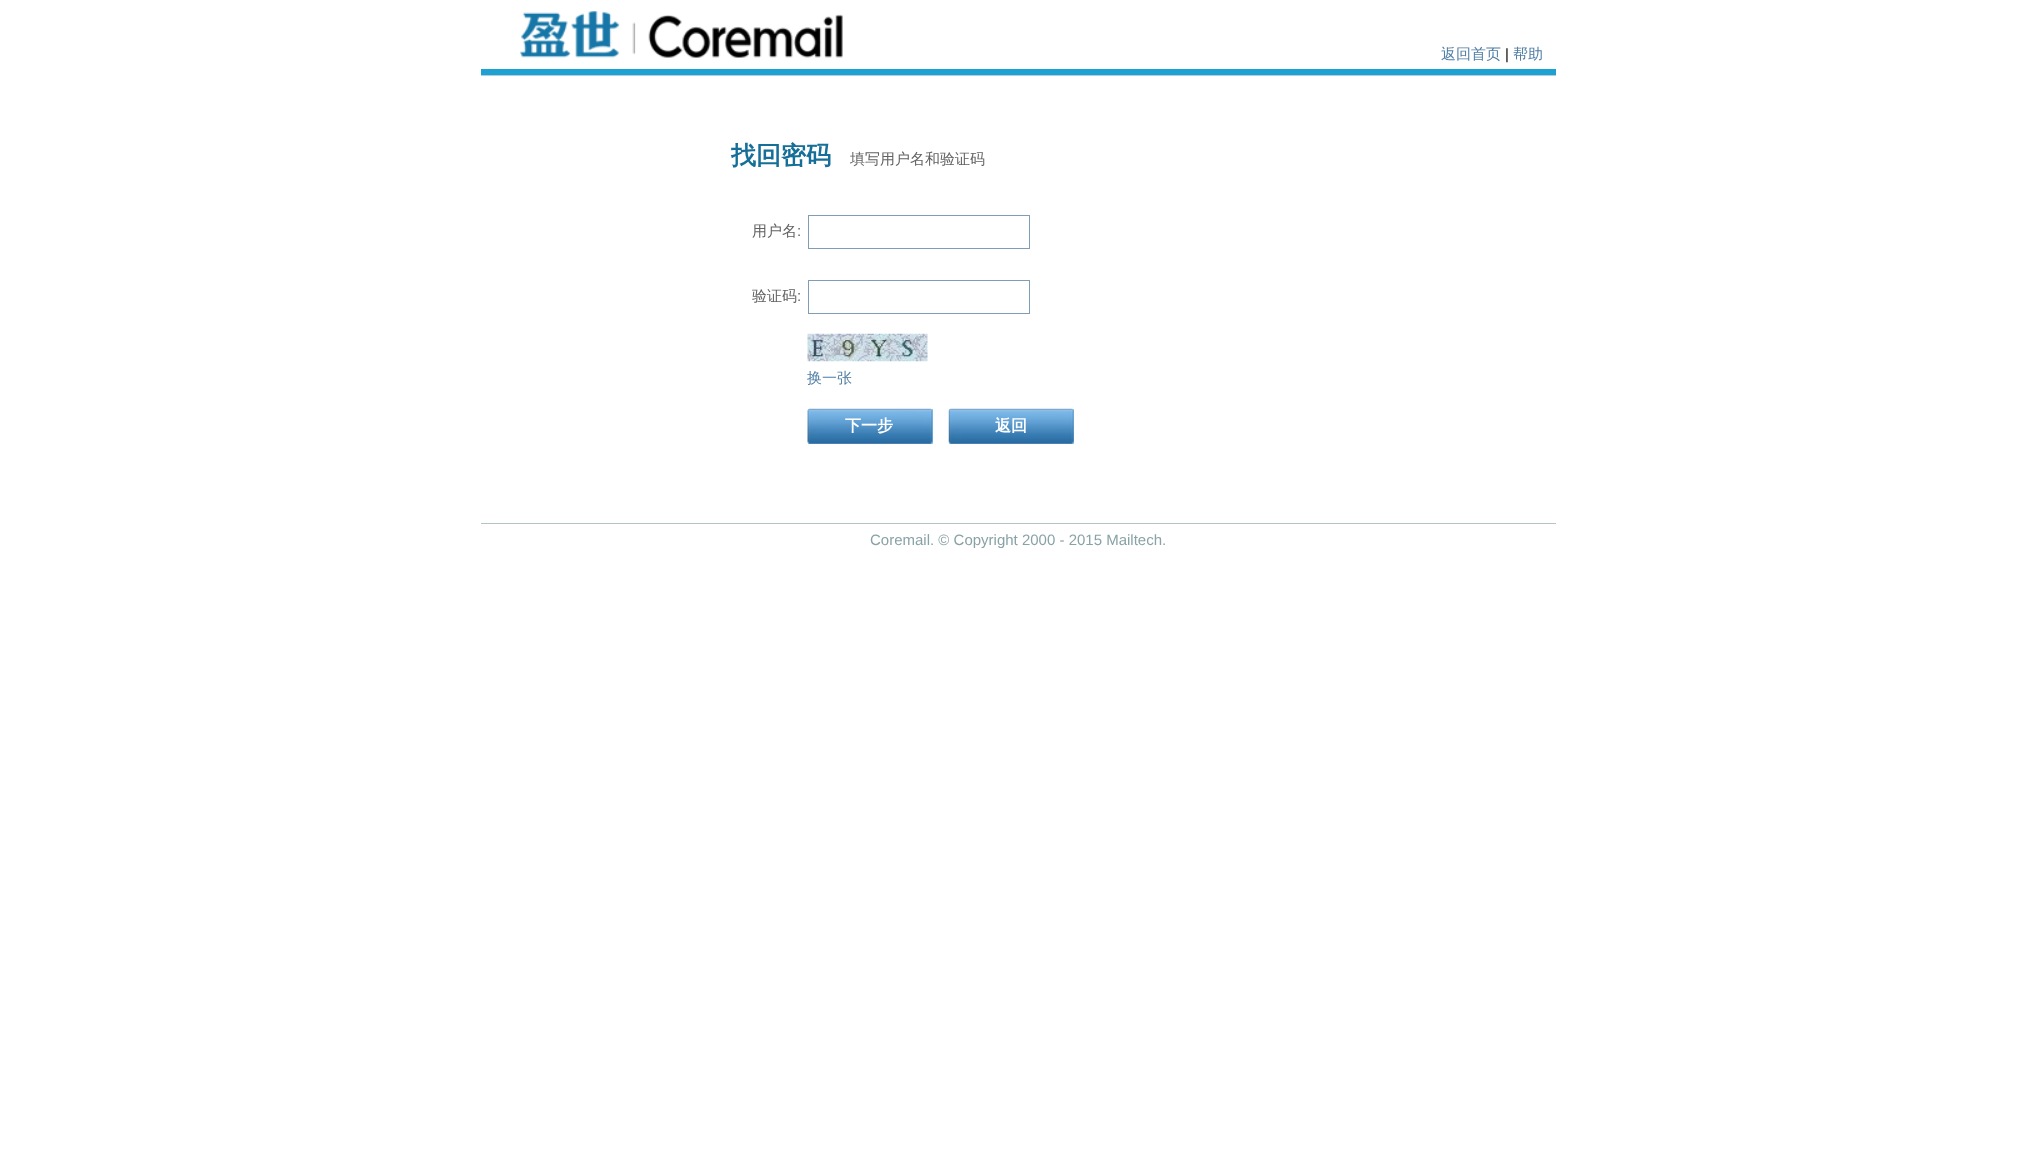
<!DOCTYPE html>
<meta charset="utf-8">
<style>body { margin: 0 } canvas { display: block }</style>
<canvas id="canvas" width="2036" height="1174"></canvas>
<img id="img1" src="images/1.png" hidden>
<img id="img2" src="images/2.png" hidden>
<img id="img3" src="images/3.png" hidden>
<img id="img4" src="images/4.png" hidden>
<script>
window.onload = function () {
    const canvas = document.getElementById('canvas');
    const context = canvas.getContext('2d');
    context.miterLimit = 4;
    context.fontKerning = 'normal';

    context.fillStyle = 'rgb(255, 255, 255)';
    context.fillRect(0, 0, 2036, 1174);
    context.fillStyle = 'rgb(29, 160, 210)';
    context.fillRect(481, 69, 1075, 6);
    context.drawImage(document.getElementById('img1'), 520, 11, 323, 47);
    context.fillStyle = 'rgb(183, 201, 220)';
    context.fillRect(481, 75, 1075, 1);
    context.strokeStyle = 'rgb(127, 157, 185)';
    context.strokeRect(808.5, 215.5, 221, 33);
    context.strokeRect(808.5, 280.5, 221, 33);
    context.drawImage(document.getElementById('img2'), 807, 333, 121, 29);
    context.fillStyle = 'rgb(135, 206, 250)';
    context.fillRect(808, 409, 125, 35);
    context.drawImage(document.getElementById('img3'), 807, 408, 126, 36);
    context.fillRect(949, 409, 125, 35);
    context.drawImage(document.getElementById('img4'), 948, 408, 126, 36);
    context.fillStyle = 'rgb(184, 195, 197)';
    context.fillRect(481, 523, 1075, 1);
    context.font = '500 15px WenQuanYi Zen Hei';
    context.fillStyle = 'rgb(80, 126, 164)';
    context.fillText('返回首页', 1441, 59);
    context.font = '15px Liberation Sans';
    context.fillStyle = 'rgb(0, 0, 0)';
    context.fillText('|', 1505, 59);
    context.font = '500 15px WenQuanYi Zen Hei';
    context.fillStyle = 'rgb(80, 126, 164)';
    context.fillText('帮助', 1513, 59);
    context.font = 'bold 25px WenQuanYi Zen Hei';
    context.fillStyle = 'rgb(21, 111, 152)';
    context.fillText('找回密码', 731, 164);
    context.font = '500 15px WenQuanYi Zen Hei';
    context.fillStyle = 'rgb(98, 98, 98)';
    context.fillText('填写用户名和验证码', 850, 164);
    context.fillText('用户名', 752, 236);
    context.font = '15px Liberation Sans';
    context.fillText(':', 797, 236);
    context.font = '500 15px WenQuanYi Zen Hei';
    context.fillText('验证码', 752, 301);
    context.font = '15px Liberation Sans';
    context.fillText(':', 797, 301);
    context.font = '500 15px WenQuanYi Zen Hei';
    context.fillStyle = 'rgb(80, 126, 164)';
    context.fillText('换一张', 807, 383);
    context.font = 'bold 16px WenQuanYi Zen Hei';
    context.fillStyle = 'rgb(255, 255, 255)';
    context.fillText('下一步', 845, 431);
    context.fillText('返回', 995, 431);
    context.font = '15px Liberation Sans';
    context.fillStyle = 'rgb(137, 162, 166)';
    context.fillText('Coremail. © Copyright 2000 - 2015 Mailtech.', 870, 545);
};
</script>
